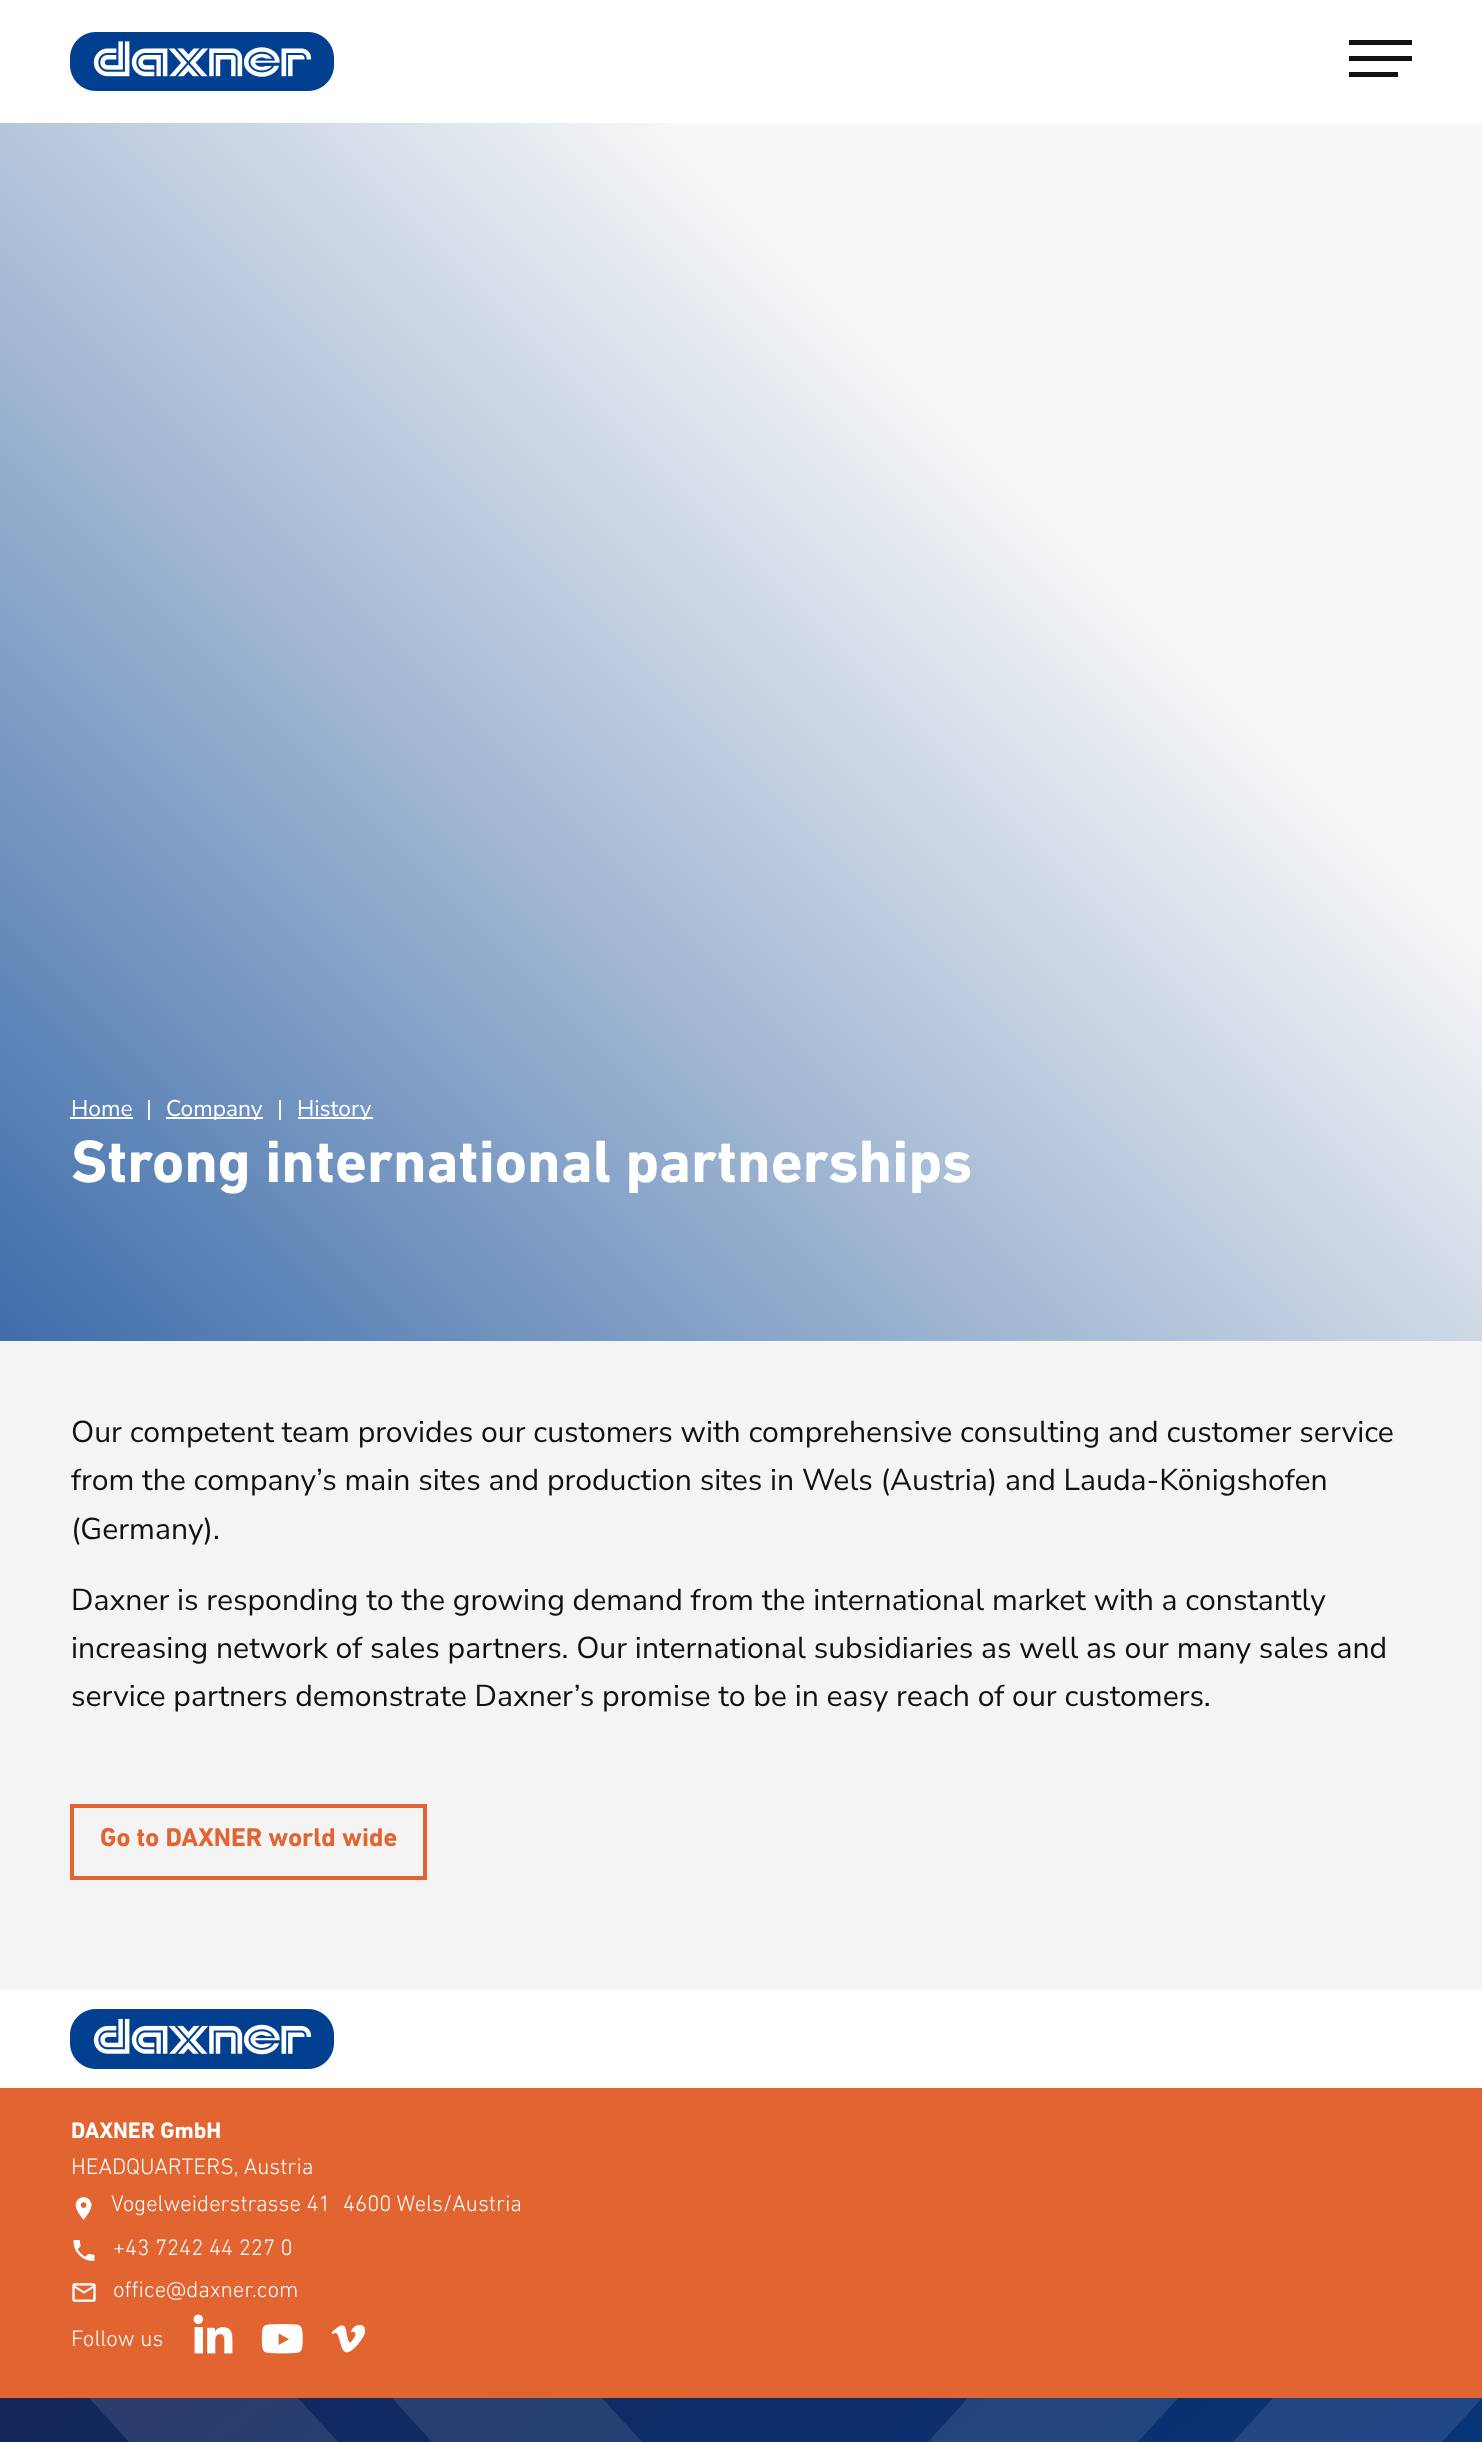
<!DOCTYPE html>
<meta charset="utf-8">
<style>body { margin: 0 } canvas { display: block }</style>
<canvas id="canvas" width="1482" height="2442"></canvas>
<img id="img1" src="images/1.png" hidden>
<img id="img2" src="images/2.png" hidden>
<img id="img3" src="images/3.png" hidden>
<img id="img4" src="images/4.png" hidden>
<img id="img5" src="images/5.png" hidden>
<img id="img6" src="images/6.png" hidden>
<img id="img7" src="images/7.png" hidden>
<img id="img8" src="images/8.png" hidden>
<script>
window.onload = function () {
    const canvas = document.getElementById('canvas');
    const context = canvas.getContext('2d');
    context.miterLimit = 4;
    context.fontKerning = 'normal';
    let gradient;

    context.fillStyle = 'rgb(244, 244, 244)';
    context.fillRect(0, 0, 1482, 2442);
    context.fillStyle = 'rgb(255, 255, 255)';
    context.fillRect(0, 0, 1482, 123);
    context.drawImage(document.getElementById('img1'), 70, 32, 264, 59);
    context.fillStyle = 'rgb(17, 17, 17)';
    context.fillRect(1349, 40, 63, 5);
    context.fillRect(1349, 56, 63, 5);
    context.fillRect(1349, 72, 49, 5);
    gradient = context.createLinearGradient(65, 1406, 1417, 54);
    gradient.addColorStop(0, 'rgb(62, 109, 170)');
    gradient.addColorStop(0.7, 'rgb(247, 247, 247)');
    context.fillStyle = gradient;
    context.fillRect(0, 123, 1482, 1218);
    context.fillStyle = 'rgb(255, 255, 255)';
    context.fillRect(70, 1117, 63, 2);
    context.fillRect(166, 1117, 97, 2);
    context.fillRect(298, 1117, 75, 2);
    context.strokeStyle = 'rgb(225, 100, 49)';
    context.lineWidth = 4;
    context.strokeRect(72, 1806, 353, 72);
    context.fillRect(0, 1990, 1482, 98);
    context.drawImage(document.getElementById('img2'), 70, 2009, 264, 60);
    context.fillStyle = 'rgb(225, 100, 49)';
    context.fillRect(0, 2088, 1482, 310);
    context.drawImage(document.getElementById('img3'), 75, 2197, 17, 23);
    context.drawImage(document.getElementById('img4'), 73, 2240, 22, 21);
    context.drawImage(document.getElementById('img5'), 72, 2283, 24, 19);
    context.drawImage(document.getElementById('img6'), 193, 2314, 40, 40);
    context.drawImage(document.getElementById('img7'), 261, 2324, 42, 30);
    context.drawImage(document.getElementById('img8'), 331, 2325, 35, 28);
    gradient = context.createLinearGradient(261, 2208, 1221, 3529);
    gradient.addColorStop(0, 'rgb(19, 38, 89)');
    gradient.addColorStop(1, 'rgb(1, 63, 145)');
    context.fillStyle = gradient;
    context.fillRect(0, 2398, 1482, 44);
    context.fillStyle = 'rgba(255, 255, 255, 0.1)';
    context.beginPath();
    context.moveTo(1273, 2398);
    context.lineTo(834, 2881);
    context.lineTo(1249, 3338);
    context.lineTo(1458, 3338);
    context.lineTo(1043, 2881);
    context.lineTo(1482, 2398);
    context.closePath();
    context.moveTo(968, 2398);
    context.lineTo(785, 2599);
    context.lineTo(602, 2398);
    context.lineTo(392, 2398);
    context.lineTo(785, 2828);
    context.lineTo(1178, 2398);
    context.closePath();
    context.moveTo(89, 2398);
    context.lineTo(529, 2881);
    context.lineTo(114, 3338);
    context.lineTo(323, 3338);
    context.lineTo(738, 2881);
    context.lineTo(298, 2398);
    context.closePath();
    context.moveTo(417, 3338);
    context.lineTo(626, 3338);
    context.lineTo(785, 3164);
    context.lineTo(944, 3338);
    context.lineTo(1153, 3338);
    context.lineTo(785, 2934);
    context.closePath();
    context.fill('evenodd');
    context.font = '22.75px Nunito Sans';
    context.fillStyle = 'rgb(255, 255, 255)';
    context.fillText('Home', 71, 1116);
    context.fillText('|', 146, 1116);
    context.fillText('Company', 166, 1116);
    context.fillText('|', 277, 1116);
    context.fillText('History', 297, 1116);
    context.font = 'bold 60.75px DIN Next';
    context.fillText('Strong international partnerships', 71, 1182);
    context.font = '30.2px Nunito Sans';
    context.fillStyle = 'rgb(17, 17, 17)';
    context.fillText('Our competent team provides our customers with comprehensive consulting and customer service', 71, 1442);
    context.fillText('from the company’s main sites and production sites in Wels (Austria) and Lauda-Königshofen', 71, 1490);
    context.fillText('(Germany).', 71, 1539);
    context.fillText('Daxner is responding to the growing demand from the international market with a constantly', 71, 1610);
    context.fillText('increasing network of sales partners. Our international subsidiaries as well as our many sales and', 71, 1658);
    context.fillText('service partners demonstrate Daxner’s promise to be in easy reach of our customers.', 71, 1706);
    context.font = 'bold 26.25px DIN Next';
    context.fillStyle = 'rgb(225, 100, 49)';
    context.fillText('Go to DAXNER world wide', 100, 1846);
    context.font = 'bold 22.75px DIN Next';
    context.fillStyle = 'rgb(255, 255, 255)';
    context.fillText('DAXNER GmbH', 71, 2138);
    context.font = '300 22.75px DIN Next';
    context.fillText('HEADQUARTERS, Austria', 71, 2174);
    context.fillText('Vogelweiderstrasse 41', 111, 2211);
    context.fillText('4600 Wels/Austria', 343, 2211);
    context.fillText('+43 7242 44 227 0', 113, 2255);
    context.fillText('office@daxner.com', 113, 2297);
    context.fillText('Follow us', 71, 2346);
};
</script>
